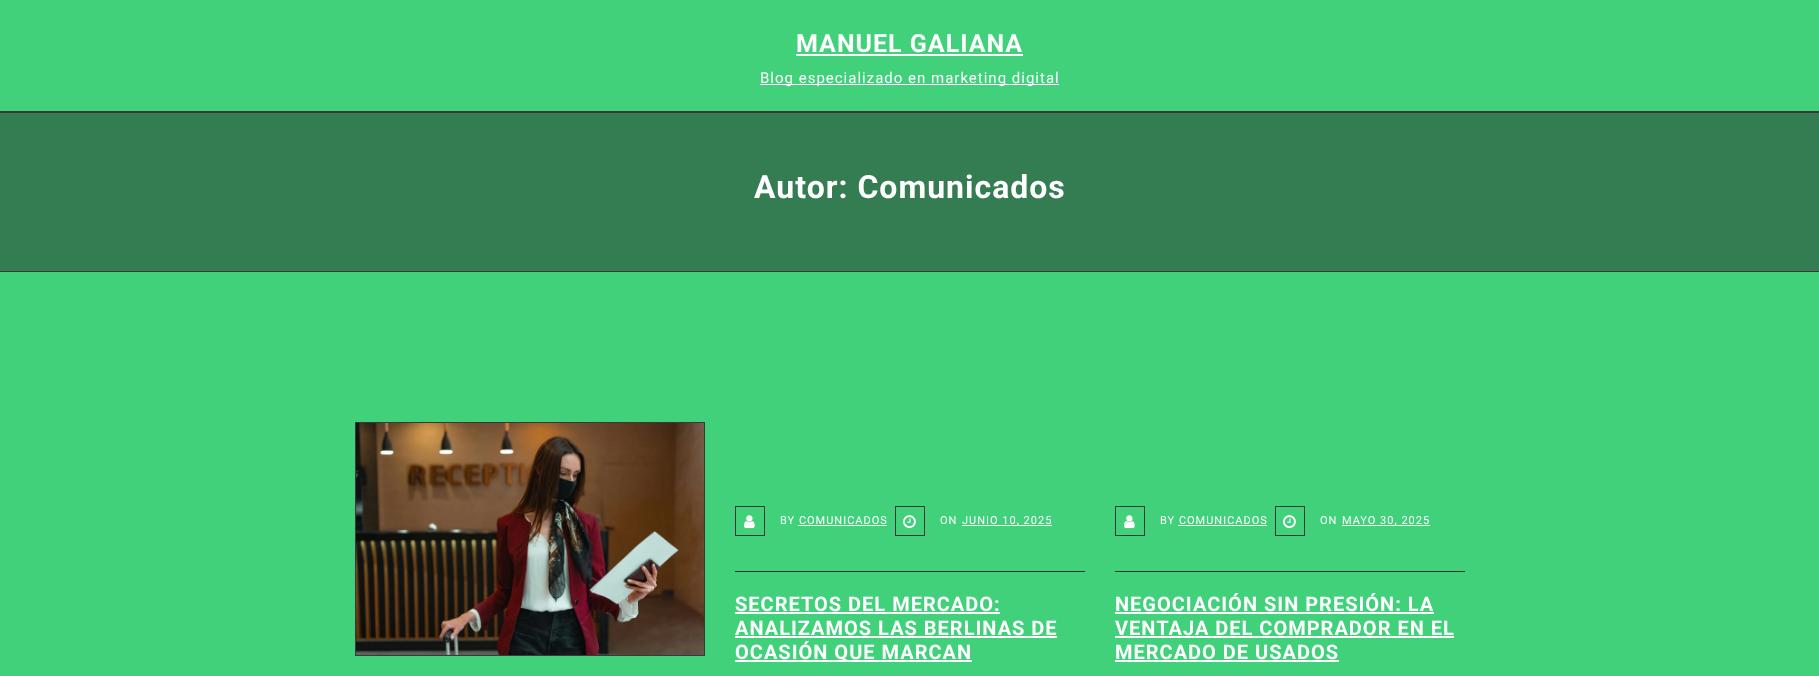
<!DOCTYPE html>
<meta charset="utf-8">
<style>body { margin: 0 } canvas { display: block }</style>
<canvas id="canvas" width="1819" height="676"></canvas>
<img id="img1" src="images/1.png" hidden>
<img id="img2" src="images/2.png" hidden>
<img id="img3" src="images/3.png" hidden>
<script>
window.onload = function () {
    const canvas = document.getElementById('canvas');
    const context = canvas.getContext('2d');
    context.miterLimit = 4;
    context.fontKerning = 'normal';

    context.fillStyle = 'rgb(64, 209, 122)';
    context.fillRect(0, 0, 1819, 676);
    context.fillStyle = 'rgb(57, 57, 57)';
    context.fillRect(0, 111, 1819, 2);
    context.fillStyle = 'rgb(255, 255, 255)';
    context.fillRect(796, 54, 227, 2);
    context.fillRect(760, 84, 299, 1);
    context.fillStyle = 'rgb(57, 57, 57)';
    context.fillRect(0, 271, 1819, 1);
    context.fillStyle = 'rgb(52, 124, 81)';
    context.fillRect(0, 113, 1819, 158);
    context.strokeStyle = 'rgb(57, 57, 57)';
    context.strokeRect(355.5, 422.5, 349, 233);
    context.drawImage(document.getElementById('img1'), 356, 423, 348, 232);
    context.strokeRect(735.5, 506.5, 29, 29);
    context.drawImage(document.getElementById('img2'), 744, 515, 11, 14);
    context.fillStyle = 'rgb(255, 255, 255)';
    context.fillRect(798, 525, 89, 1);
    context.strokeRect(895.5, 506.5, 29, 29);
    context.drawImage(document.getElementById('img3'), 903, 515, 13, 14);
    context.fillRect(962, 525, 90, 1);
    context.fillStyle = 'rgb(49, 49, 49)';
    context.fillRect(735, 571, 350, 1);
    context.fillStyle = 'rgb(255, 255, 255)';
    context.fillRect(735, 612, 265, 2);
    context.fillRect(735, 636, 322, 2);
    context.fillRect(735, 660, 237, 2);
    context.strokeRect(1115.5, 506.5, 29, 29);
    context.drawImage(document.getElementById('img2'), 1124, 515, 11, 14);
    context.fillRect(1178, 525, 89, 1);
    context.strokeRect(1275.5, 506.5, 29, 29);
    context.drawImage(document.getElementById('img3'), 1283, 515, 13, 14);
    context.fillRect(1342, 525, 88, 1);
    context.fillStyle = 'rgb(49, 49, 49)';
    context.fillRect(1115, 571, 350, 1);
    context.fillStyle = 'rgb(255, 255, 255)';
    context.fillRect(1115, 612, 319, 2);
    context.fillRect(1115, 636, 339, 2);
    context.fillRect(1115, 660, 224, 2);
    context.letterSpacing = '1px';
    context.font = 'bold 25px Roboto';
    context.fillText('MANUEL GALIANA', 796, 52);
    context.font = '15px Roboto';
    context.fillText('Blog especializado en marketing digital', 760, 83);
    context.font = 'bold 32px Roboto';
    context.fillText('Autor: Comunicados', 754, 198);
    context.font = '11px Roboto';
    context.fillText('BY COMUNICADOS', 780, 524);
    context.fillText('ON', 940, 524);
    context.fillText('JUNIO 10, 2025', 962, 524);
    context.font = 'bold 20px Roboto';
    context.fillText('SECRETOS DEL MERCADO:', 735, 611);
    context.fillText('ANALIZAMOS LAS BERLINAS DE', 735, 635);
    context.fillText('OCASIÓN QUE MARCAN', 735, 659);
    context.font = '11px Roboto';
    context.fillText('BY COMUNICADOS', 1160, 524);
    context.fillText('ON', 1320, 524);
    context.fillText('MAYO 30, 2025', 1342, 524);
    context.font = 'bold 20px Roboto';
    context.fillText('NEGOCIACIÓN SIN PRESIÓN: LA', 1115, 611);
    context.fillText('VENTAJA DEL COMPRADOR EN EL', 1115, 635);
    context.fillText('MERCADO DE USADOS', 1115, 659);
};
</script>
